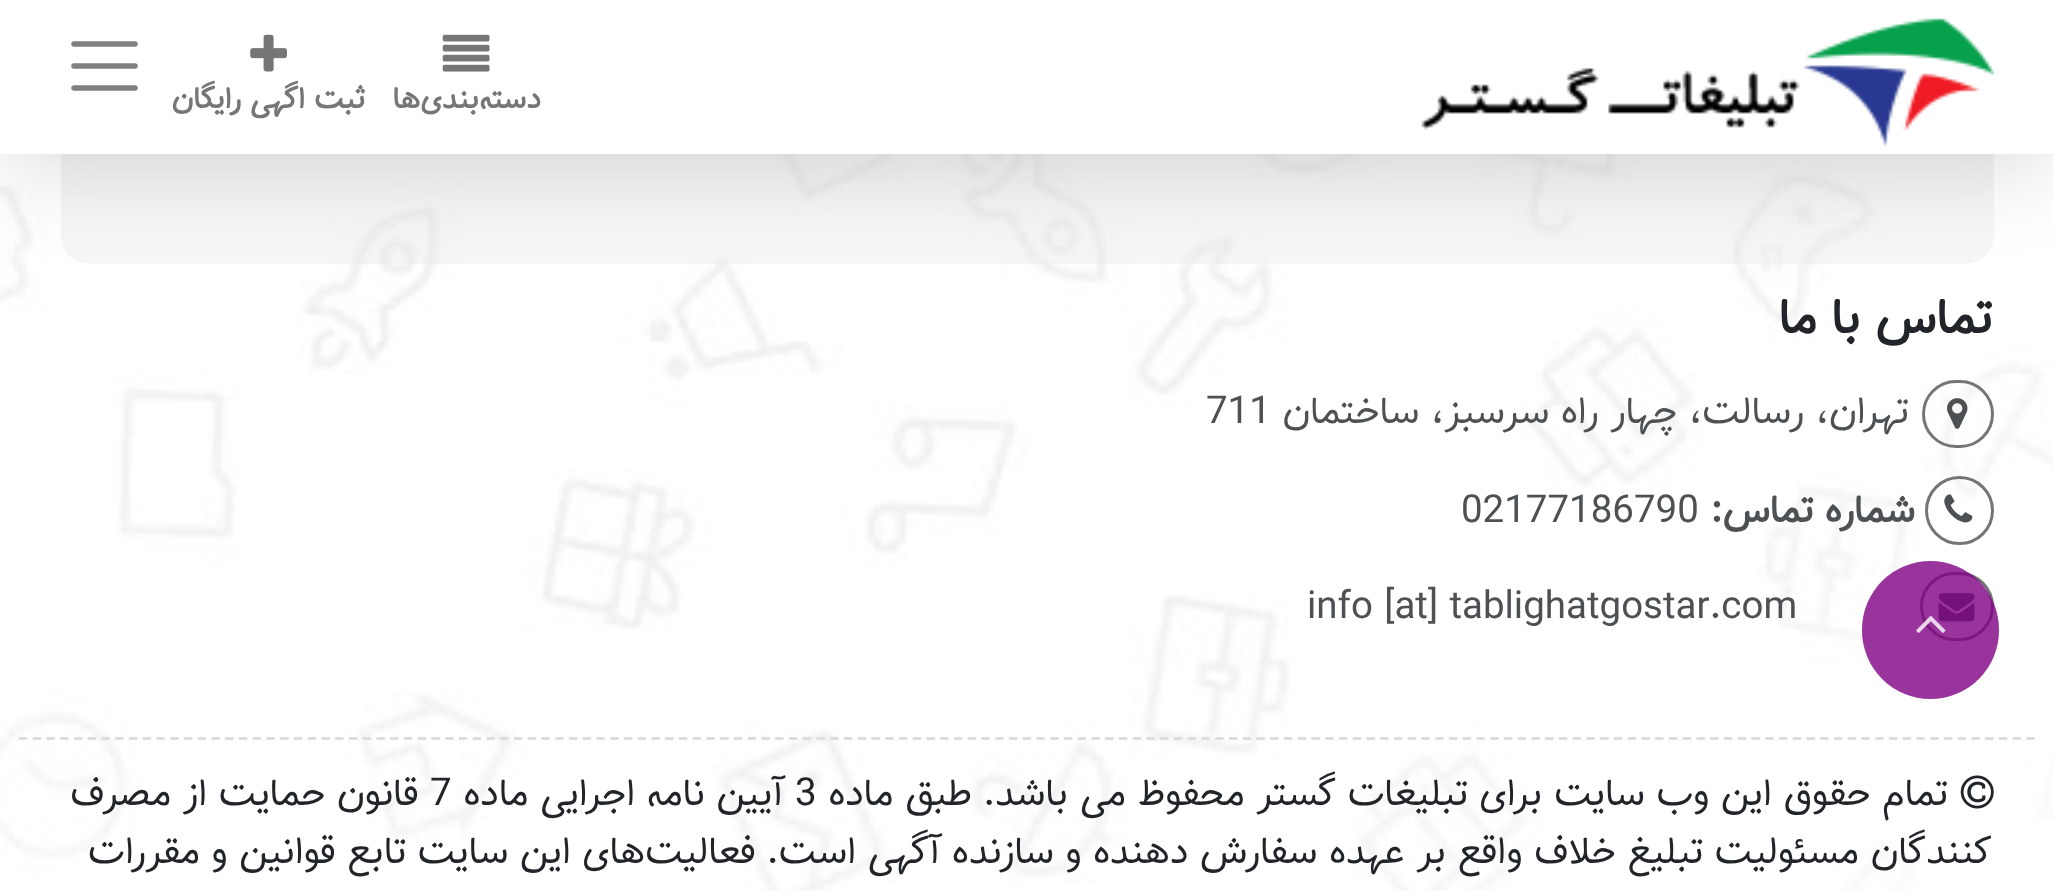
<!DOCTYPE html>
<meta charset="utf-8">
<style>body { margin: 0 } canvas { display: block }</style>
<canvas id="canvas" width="2053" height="891"></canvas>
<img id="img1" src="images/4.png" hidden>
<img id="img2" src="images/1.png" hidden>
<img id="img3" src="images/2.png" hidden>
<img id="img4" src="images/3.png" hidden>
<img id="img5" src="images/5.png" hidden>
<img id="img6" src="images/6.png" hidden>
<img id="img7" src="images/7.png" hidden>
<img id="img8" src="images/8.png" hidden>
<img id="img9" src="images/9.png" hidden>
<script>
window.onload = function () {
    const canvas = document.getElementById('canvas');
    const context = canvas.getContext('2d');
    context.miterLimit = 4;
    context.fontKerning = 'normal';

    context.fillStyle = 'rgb(255, 255, 255)';
    context.fillRect(0, 0, 2053, 891);
    context.drawImage(document.getElementById('img1'), 0, 154, 2053, 737);
    context.fillStyle = 'rgba(232, 232, 232, 0.4)';
    context.beginPath();
    context.roundRect(61, -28, 1933, 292, 28);
    context.fill();
    context.fillStyle = 'rgba(0, 0, 0, 0.15)';
    context.filter = 'blur(45.5px)';
    context.beginPath();
    context.rect(0, 11, 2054, 154);
    context.fill();
    context.filter = 'none';
    context.fillStyle = 'rgb(255, 255, 255)';
    context.fillRect(0, 0, 2053, 154);
    context.drawImage(document.getElementById('img2'), 1421, 18, 573, 129);
    context.beginPath();
    context.moveTo(74, 44);
    context.lineTo(135, 44);
    context.moveTo(74, 66);
    context.lineTo(135, 66);
    context.moveTo(74, 88);
    context.lineTo(135, 88);
    context.strokeStyle = 'rgb(128, 128, 128)';
    context.lineWidth = 5.5;
    context.lineCap = 'round';
    context.stroke();
    context.drawImage(document.getElementById('img3'), 442, 34, 48, 38);
    context.drawImage(document.getElementById('img4'), 250, 34, 37, 38);
    context.beginPath();
    context.roundRect(1923.5, 381.5, 69, 65, 32.5);
    context.strokeStyle = 'rgba(82, 82, 82, 0.8)';
    context.lineWidth = 3;
    context.stroke();
    context.drawImage(document.getElementById('img5'), 1947, 398, 21, 31);
    context.beginPath();
    context.arc(1959.5, 510.5, 33, 0, 2 * Math.PI);
    context.stroke();
    context.drawImage(document.getElementById('img6'), 1944, 494, 29, 29);
    context.beginPath();
    context.roundRect(1921.5, 573.5, 71, 66, 33);
    context.strokeStyle = 'rgb(117, 117, 117)';
    context.stroke();
    context.drawImage(document.getElementById('img7'), 1938, 593, 37, 29);
    context.beginPath();
    context.moveTo(19, 738.5);
    context.lineTo(2035, 738.5);
    context.strokeStyle = 'rgb(221, 221, 221)';
    context.lineWidth = 2.8;
    context.lineCap = 'butt';
    context.setLineDash([8.25, 5.5]);
    context.stroke();
    context.drawImage(document.getElementById('img8'), 1960, 775, 34, 34);
    context.fillStyle = 'rgba(128, 1, 132, 0.8)';
    context.beginPath();
    context.roundRect(1862, 561, 137, 138, 68.5);
    context.fill();
    context.drawImage(document.getElementById('img9'), 1916, 616, 30, 17);
    context.direction = 'rtl';
    context.font = 'bold 30.25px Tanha';
    context.fillStyle = 'rgb(118, 118, 118)';
    context.fillText('دسته‌بندی‌ها', 541, 108);
    context.fillText('ثبت اگهی رایگان', 365, 108);
    context.font = 'bold 49.5px Tanha';
    context.fillStyle = 'rgb(33, 37, 41)';
    context.fillText('تماس با ما', 1992, 333);
    context.font = '38.5px Tanha';
    context.fillStyle = 'rgb(77, 81, 84)';
    context.fillText('تهران، رسالت، چهار راه سرسبز، ساختمان', 1909, 423);
    context.direction = 'ltr';
    context.fillText('711', 1206, 423);
    context.direction = 'rtl';
    context.font = 'bold 38.5px Tanha';
    context.fillText('شماره تماس:', 1915, 522);
    context.direction = 'ltr';
    context.font = '38.5px Tanha';
    context.fillText('02177186790', 1461, 522);
    context.fillText('info [at] tablighatgostar.com', 1307, 618);
    context.direction = 'rtl';
    context.fillStyle = 'rgb(33, 37, 41)';
    context.fillText('تمام حقوق این وب سایت برای تبلیغات گستر محفوظ می باشد.', 1948, 805);
    context.fillText('طبق ماده', 972, 805);
    context.direction = 'ltr';
    context.fillText('3', 795, 805);
    context.direction = 'rtl';
    context.fillText('آیین نامه اجرایی ماده', 784, 805);
    context.direction = 'ltr';
    context.fillText('7', 430, 805);
    context.direction = 'rtl';
    context.fillText('قانون حمایت از مصرف', 419, 805);
    context.fillText('کنندگان مسئولیت تبلیغ خلاف واقع بر عهده سفارش دهنده و سازنده آگهی است.', 1992, 863);
    context.fillText('فعالیت‌های این سایت تابع قوانین و مقررات', 756, 863);
};
</script>
